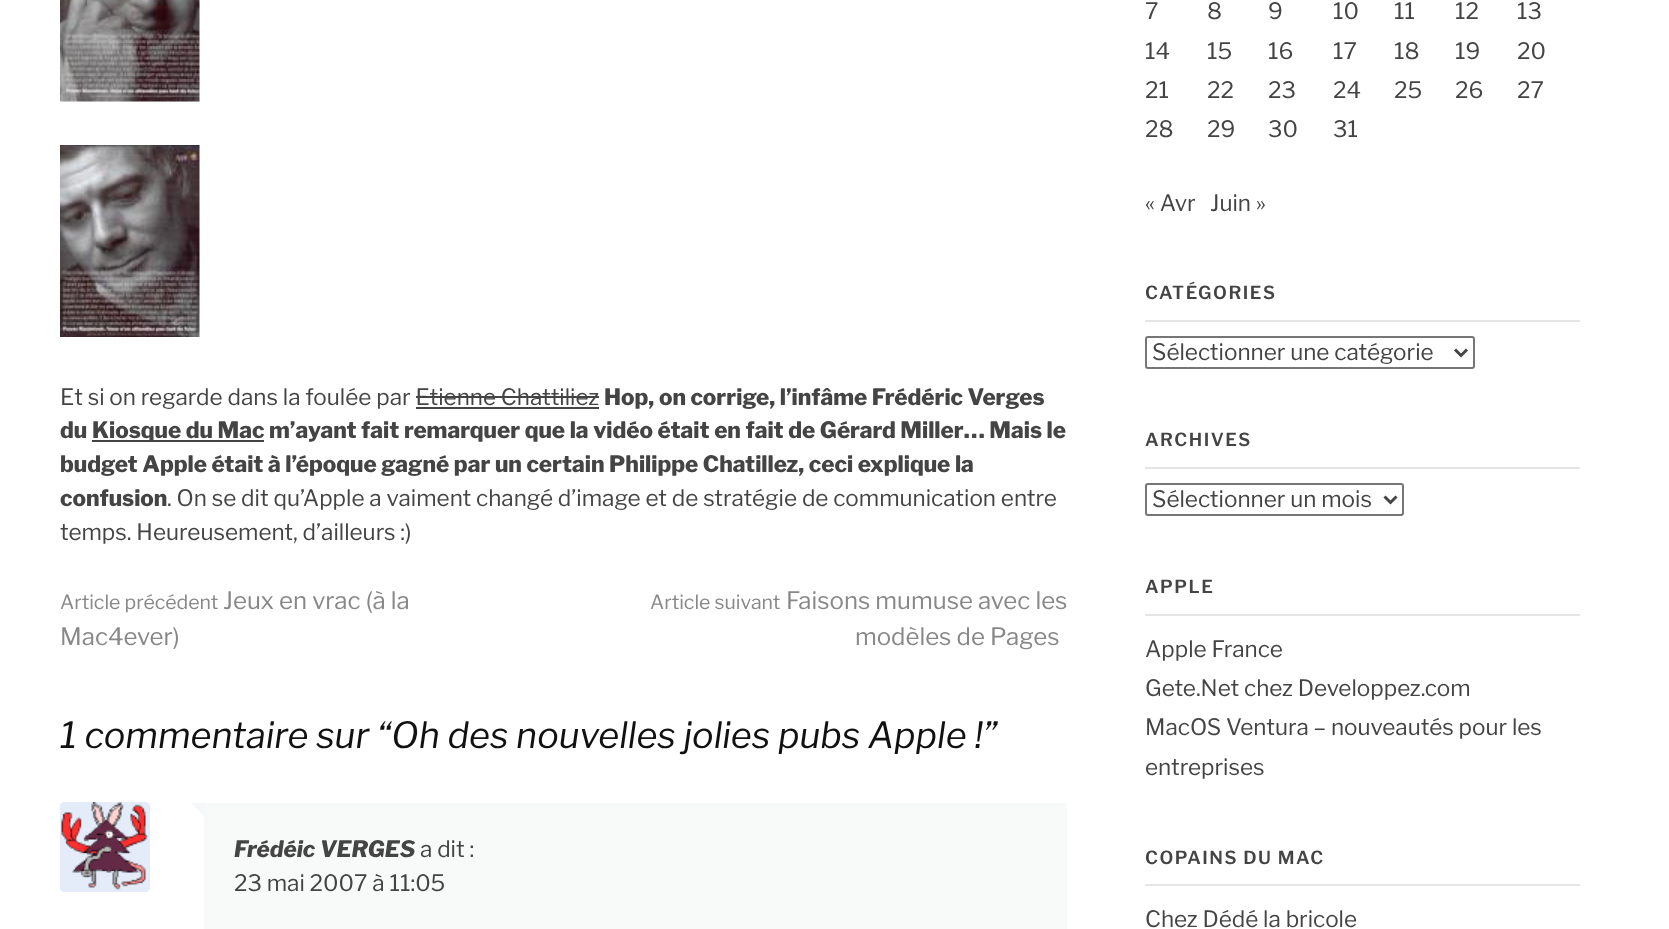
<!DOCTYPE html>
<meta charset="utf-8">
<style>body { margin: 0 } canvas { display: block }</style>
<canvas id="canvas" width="1669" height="929"></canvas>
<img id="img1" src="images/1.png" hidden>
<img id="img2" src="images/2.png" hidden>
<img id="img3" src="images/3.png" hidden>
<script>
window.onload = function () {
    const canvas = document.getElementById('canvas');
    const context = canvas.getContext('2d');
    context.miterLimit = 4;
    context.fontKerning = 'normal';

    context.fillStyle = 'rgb(255, 255, 255)';
    context.fillRect(0, 0, 1669, 929);
    context.drawImage(document.getElementById('img1'), 60, 0, 140, 102);
    context.drawImage(document.getElementById('img2'), 60, 145, 140, 192);
    context.fillStyle = 'rgb(68, 68, 68)';
    context.fillRect(416, 396, 183, 2);
    context.fillRect(416, 407, 183, 2);
    context.fillRect(92, 440, 172, 2);
    context.drawImage(document.getElementById('img3'), 60, 802, 90, 90);
    context.fillStyle = 'rgb(248, 249, 249)';
    context.fillRect(204, 803, 863, 126);
    context.fillStyle = 'rgb(246, 247, 249)';
    context.beginPath();
    context.moveTo(205.5, 802.5);
    context.lineTo(205.5, 817.5);
    context.lineTo(190.5, 802.5);
    context.closePath();
    context.fill();
    context.fillStyle = 'rgb(229, 229, 229)';
    context.fillRect(1145, 320, 435, 2);
    context.beginPath();
    context.roundRect(1146, 337, 328, 31, 2);
    context.strokeStyle = 'rgb(118, 118, 118)';
    context.lineWidth = 2;
    context.stroke();
    context.beginPath();
    context.moveTo(1455, 349.5);
    context.lineTo(1461, 355.5);
    context.lineTo(1467, 349.5);
    context.strokeStyle = 'rgb(68, 68, 68)';
    context.lineWidth = 3;
    context.stroke();
    context.fillRect(1145, 467, 435, 2);
    context.beginPath();
    context.roundRect(1146, 484, 257, 31, 2);
    context.strokeStyle = 'rgb(118, 118, 118)';
    context.lineWidth = 2;
    context.stroke();
    context.beginPath();
    context.moveTo(1384.5, 496.5);
    context.lineTo(1390.5, 502.5);
    context.lineTo(1396.5, 496.5);
    context.strokeStyle = 'rgb(68, 68, 68)';
    context.lineWidth = 3;
    context.stroke();
    context.fillRect(1145, 614, 435, 2);
    context.fillRect(1145, 884, 435, 2);
    context.font = '22.5px Libre Franklin';
    context.fillStyle = 'rgb(68, 68, 68)';
    context.fillText('Et si on regarde dans la foulée par Etienne Chattiliez', 60, 405);
    context.font = '800 22.5px Libre Franklin';
    context.fillText('Hop, on corrige, l’infâme Frédéric Verges', 604, 405);
    context.fillText('du', 60, 438);
    context.fillText('Kiosque du Mac m’ayant fait remarquer que la vidéo était en fait de Gérard Miller… Mais le', 92, 438);
    context.fillText('budget Apple était à l’époque gagné par un certain Philippe Chatillez, ceci explique la', 60, 472);
    context.fillText('confusion', 60, 506);
    context.font = '22.5px Libre Franklin';
    context.fillText('. On se dit qu’Apple a vaiment changé d’image et de stratégie de communication entre', 167, 506);
    context.fillText('temps. Heureusement, d’ailleurs :)', 60, 540);
    context.font = '19.5px Libre Franklin';
    context.fillStyle = 'rgb(136, 136, 136)';
    context.fillText('Article précédent', 60, 609);
    context.font = '24px Libre Franklin';
    context.fillText('Jeux en vrac (à la', 223, 609);
    context.fillText('Mac4ever)', 60, 645);
    context.font = '19.5px Libre Franklin';
    context.fillText('Article suivant', 650, 609);
    context.font = '24px Libre Franklin';
    context.fillText('Faisons mumuse avec les', 786, 609);
    context.fillText('modèles de Pages', 855, 645);
    context.font = 'italic 36px Libre Franklin';
    context.fillStyle = 'rgb(17, 17, 17)';
    context.fillText('1 commentaire sur “Oh des nouvelles jolies pubs Apple !”', 60, 748);
    context.font = 'italic 800 22.5px Libre Franklin';
    context.fillStyle = 'rgb(68, 68, 68)';
    context.fillText('Frédéic VERGES', 234, 857);
    context.font = '22.5px Libre Franklin';
    context.fillText('a dit :', 420, 857);
    context.fillText('23 mai 2007 à 11:05', 234, 891);
    context.fillText('7', 1145, 19);
    context.fillText('8', 1207, 19);
    context.fillText('9', 1268, 19);
    context.fillText('10', 1333, 19);
    context.fillText('11', 1394, 19);
    context.fillText('12', 1455, 19);
    context.fillText('13', 1517, 19);
    context.fillText('14', 1145, 59);
    context.fillText('15', 1207, 59);
    context.fillText('16', 1268, 59);
    context.fillText('17', 1333, 59);
    context.fillText('18', 1394, 59);
    context.fillText('19', 1455, 59);
    context.fillText('20', 1517, 59);
    context.fillText('21', 1145, 98);
    context.fillText('22', 1207, 98);
    context.fillText('23', 1268, 98);
    context.fillText('24', 1333, 98);
    context.fillText('25', 1394, 98);
    context.fillText('26', 1455, 98);
    context.fillText('27', 1517, 98);
    context.fillText('28', 1145, 137);
    context.fillText('29', 1207, 137);
    context.fillText('30', 1268, 137);
    context.fillText('31', 1333, 137);
    context.fillText('« Avr', 1145, 211);
    context.fillText('Juin »', 1210, 211);
    context.letterSpacing = '1.5px';
    context.font = '600 18px Libre Franklin';
    context.fillText('CATÉGORIES', 1145, 299);
    context.letterSpacing = '0px';
    context.font = '22.5px Libre Franklin';
    context.fillText('Sélectionner une catégorie', 1152, 360);
    context.letterSpacing = '1.5px';
    context.font = '600 18px Libre Franklin';
    context.fillText('ARCHIVES', 1145, 446);
    context.letterSpacing = '0px';
    context.font = '22.5px Libre Franklin';
    context.fillText('Sélectionner un mois', 1152, 507);
    context.letterSpacing = '1.5px';
    context.font = '600 18px Libre Franklin';
    context.fillText('APPLE', 1145, 593);
    context.letterSpacing = '0px';
    context.font = '22.5px Libre Franklin';
    context.fillText('Apple France', 1145, 657);
    context.fillText('Gete.Net chez Developpez.com', 1145, 696);
    context.fillText('MacOS Ventura – nouveautés pour les', 1145, 735);
    context.fillText('entreprises', 1145, 775);
    context.letterSpacing = '1.5px';
    context.font = '600 18px Libre Franklin';
    context.fillText('COPAINS DU MAC', 1145, 864);
    context.letterSpacing = '0px';
    context.font = '22.5px Libre Franklin';
    context.fillText('Chez Dédé la bricole', 1145, 927);
};
</script>
